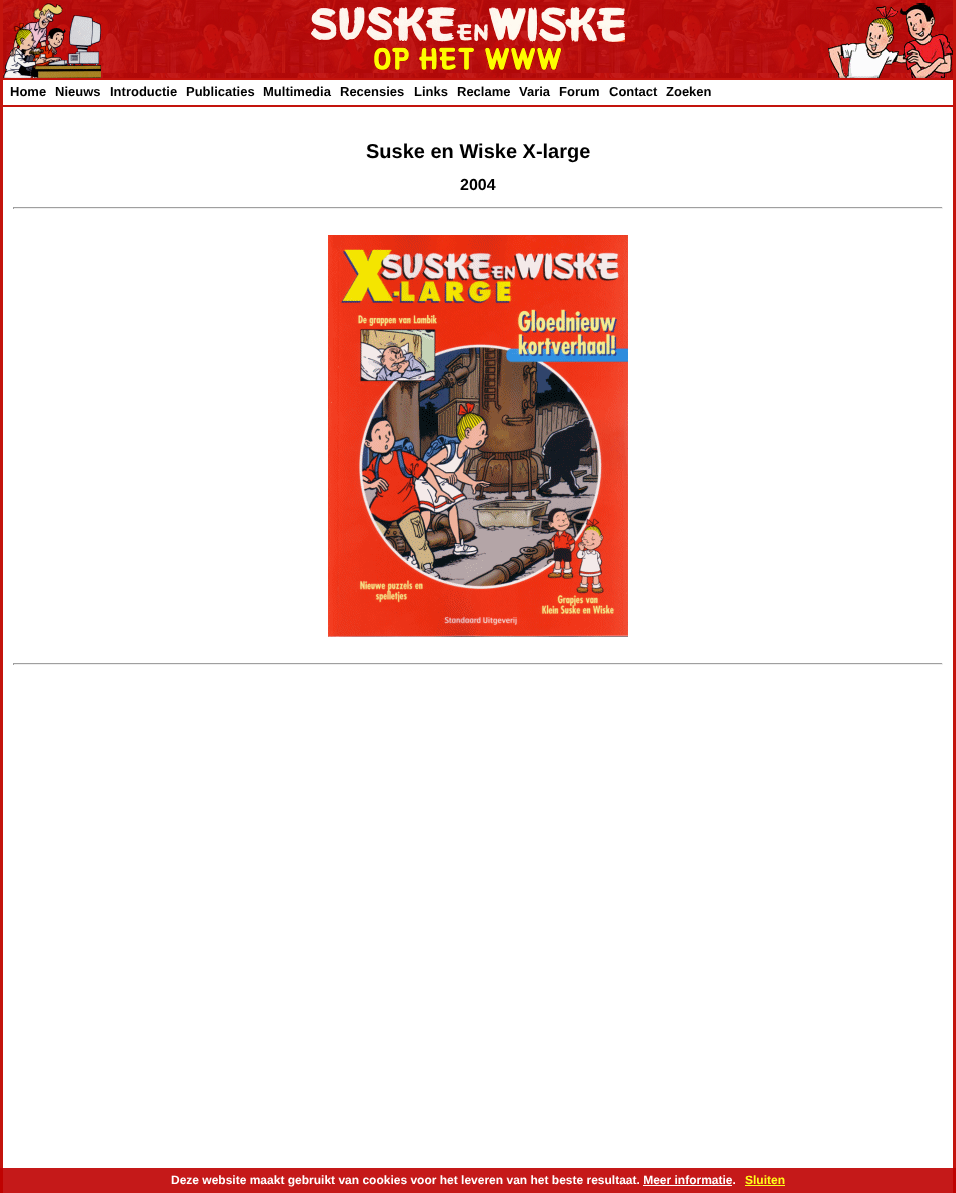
<!DOCTYPE html>
<meta charset="utf-8">
<style>body { margin: 0 } canvas { display: block }</style>
<canvas id="canvas" width="956" height="1193"></canvas>
<img id="img1" src="images/1.png" hidden>
<img id="img2" src="images/2.png" hidden>
<img id="img3" src="images/3.png" hidden>
<img id="img4" src="images/4.png" hidden>
<img id="img5" src="images/5.png" hidden>
<script>
window.onload = function () {
    const canvas = document.getElementById('canvas');
    const context = canvas.getContext('2d');
    context.miterLimit = 4;
    context.fontKerning = 'normal';

    context.fillStyle = 'rgb(255, 255, 255)';
    context.fillRect(0, 0, 956, 1193);
    context.strokeStyle = 'rgb(195, 20, 13)';
    context.lineWidth = 3;
    context.strokeRect(1.5, -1.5, 953, 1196);
    context.drawImage(document.getElementById('img1'), 3, 0, 950, 78);
    context.drawImage(document.getElementById('img2'), 3, 3, 98, 75);
    context.drawImage(document.getElementById('img3'), 311, 7, 314, 63);
    context.drawImage(document.getElementById('img4'), 828, 3, 125, 75);
    context.fillStyle = 'rgb(195, 20, 13)';
    context.fillRect(3, 78, 950, 2);
    context.fillRect(3, 105, 950, 2);
    context.fillStyle = 'rgb(159, 159, 159)';
    context.fillRect(13, 207, 930, 1);
    context.fillStyle = 'rgb(238, 238, 238)';
    context.fillRect(942, 207, 1, 2);
    context.fillRect(13, 208, 930, 1);
    context.fillStyle = 'rgb(159, 159, 159)';
    context.fillRect(13, 207, 1, 2);
    context.drawImage(document.getElementById('img5'), 328, 235, 300, 402);
    context.fillRect(13, 663, 930, 1);
    context.fillStyle = 'rgb(238, 238, 238)';
    context.fillRect(942, 663, 1, 2);
    context.fillRect(13, 664, 930, 1);
    context.fillStyle = 'rgb(159, 159, 159)';
    context.fillRect(13, 663, 1, 2);
    context.fillStyle = 'rgba(191, 0, 0, 0.9)';
    context.fillRect(0, 1168, 956, 25);
    context.fillStyle = 'rgb(255, 255, 26)';
    context.fillRect(745, 1185, 40, 1);
    context.fillStyle = 'rgb(255, 255, 255)';
    context.fillRect(643, 1185, 89, 1);
    context.font = 'bold 13px Liberation Sans';
    context.fillStyle = 'rgb(0, 0, 0)';
    context.fillText('Home', 10, 96);
    context.fillText('Nieuws', 55, 96);
    context.fillText('Introductie', 110, 96);
    context.fillText('Publicaties', 186, 96);
    context.fillText('Multimedia', 263, 96);
    context.fillText('Recensies', 340, 96);
    context.fillText('Links', 414, 96);
    context.fillText('Reclame', 457, 96);
    context.fillText('Varia', 519, 96);
    context.fillText('Forum', 559, 96);
    context.fillText('Contact', 609, 96);
    context.fillText('Zoeken', 666, 96);
    context.font = 'bold 20px Liberation Sans';
    context.fillText('Suske en Wiske X-large', 366, 158);
    context.font = 'bold 16px Liberation Sans';
    context.fillText('2004', 460, 190);
    context.font = 'bold 12px Liberation Sans';
    context.fillStyle = 'rgb(255, 255, 255)';
    context.fillText('Deze website maakt gebruikt van cookies voor het leveren van het beste resultaat. Meer informatie.', 171, 1184);
    context.fillStyle = 'rgb(255, 255, 26)';
    context.fillText('Sluiten', 745, 1184);
};
</script>
